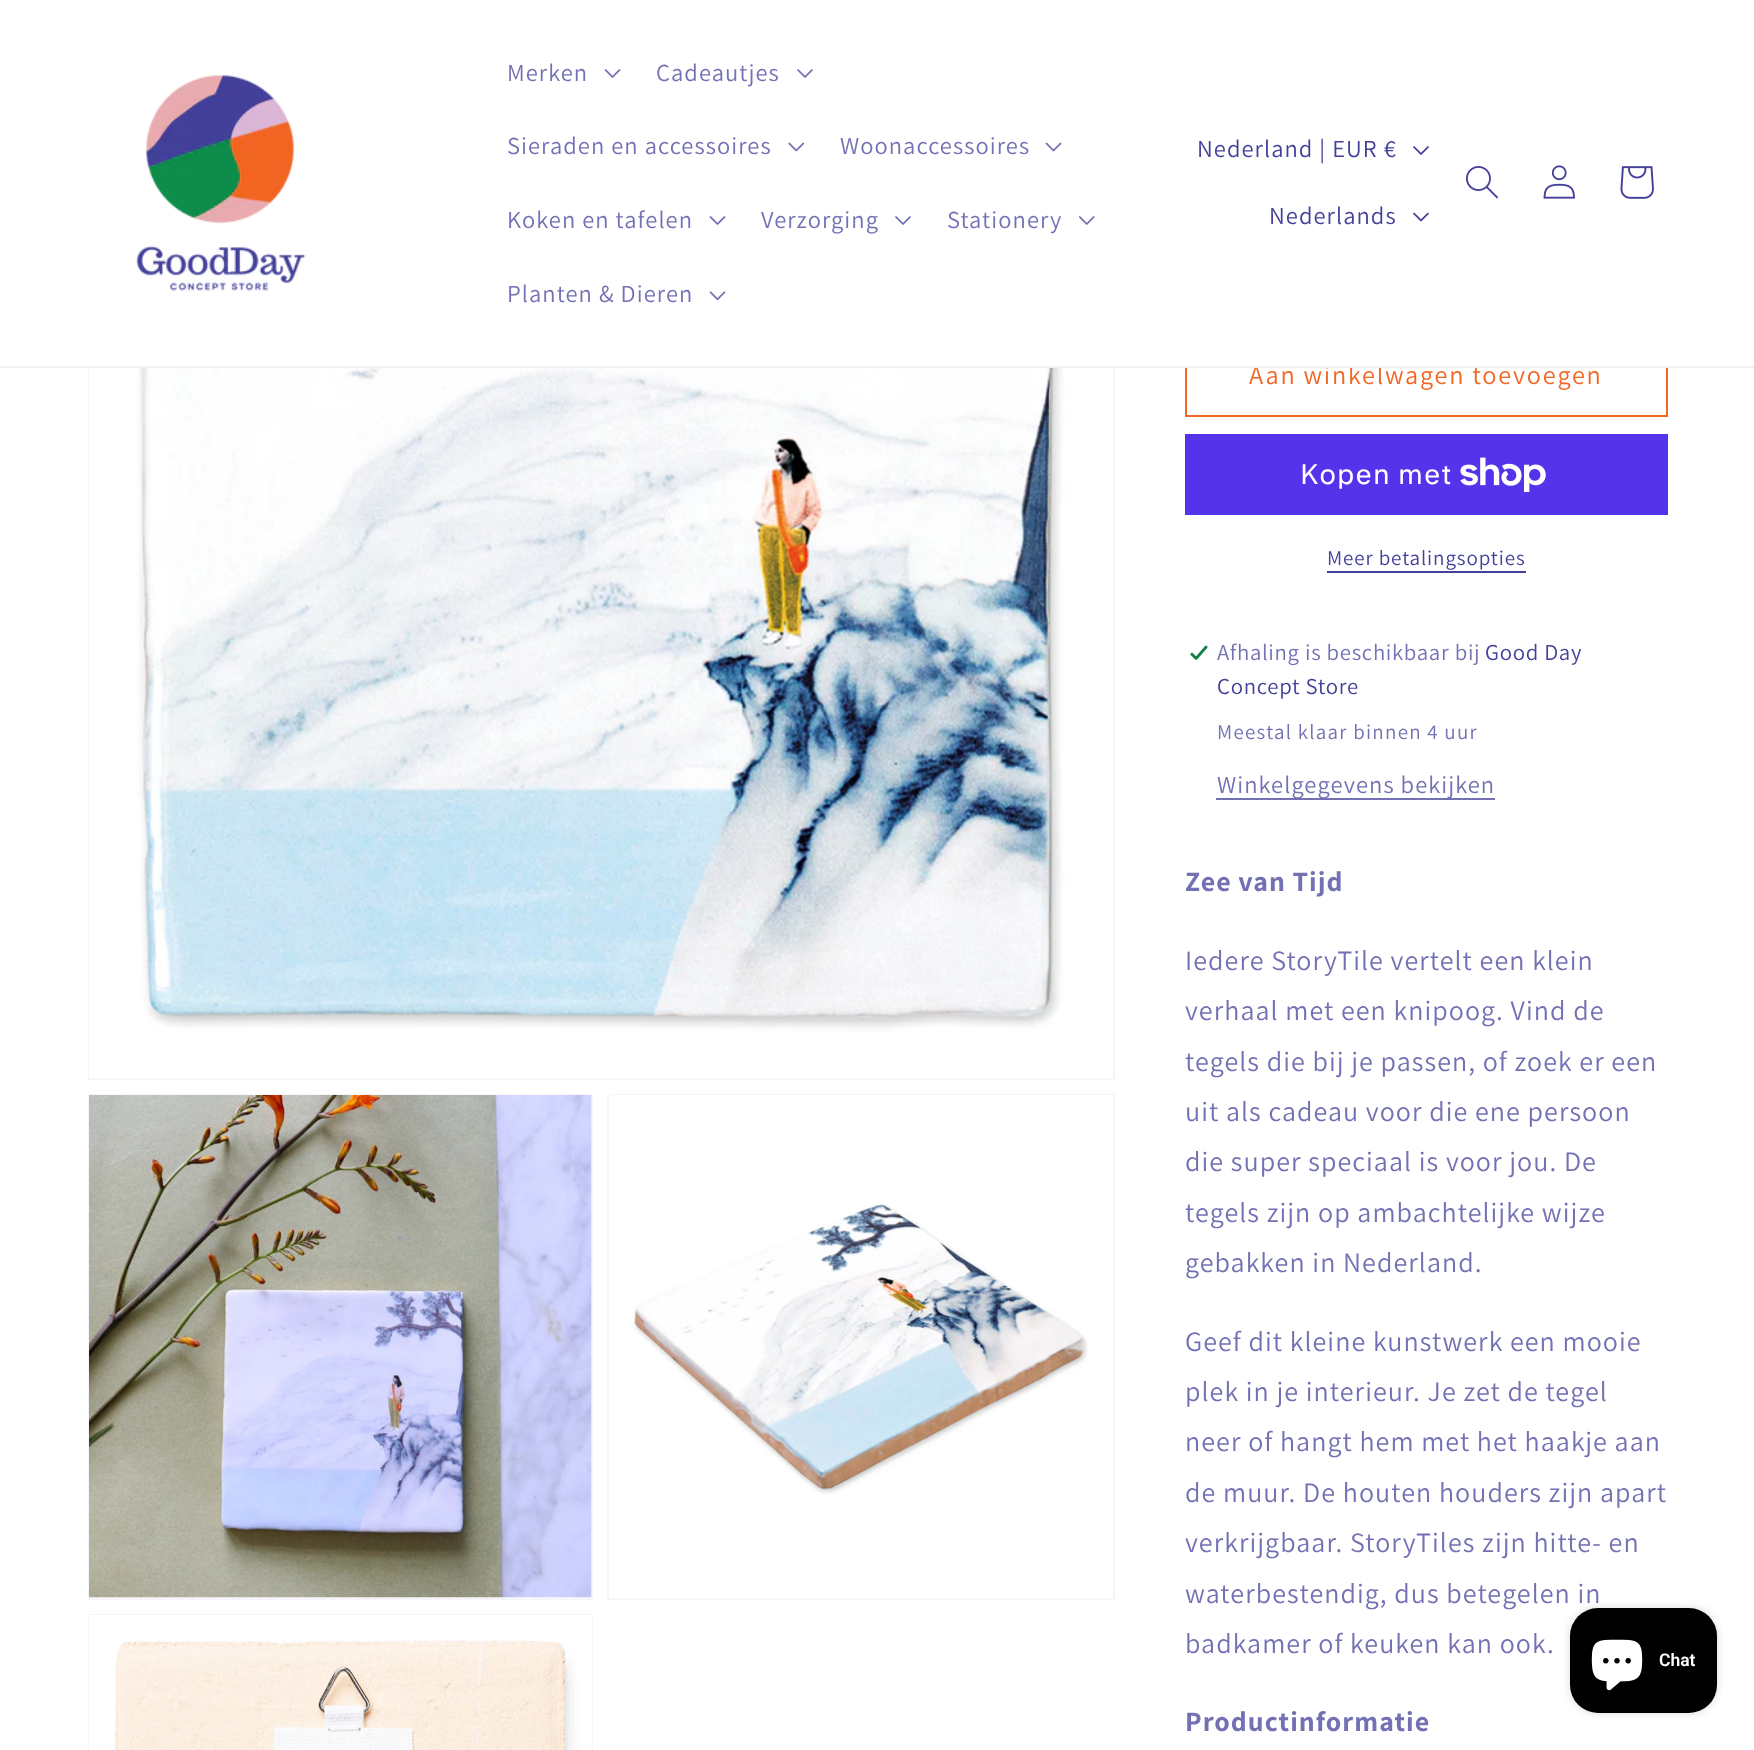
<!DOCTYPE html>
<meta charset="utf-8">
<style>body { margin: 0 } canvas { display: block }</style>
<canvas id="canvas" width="1754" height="1750"></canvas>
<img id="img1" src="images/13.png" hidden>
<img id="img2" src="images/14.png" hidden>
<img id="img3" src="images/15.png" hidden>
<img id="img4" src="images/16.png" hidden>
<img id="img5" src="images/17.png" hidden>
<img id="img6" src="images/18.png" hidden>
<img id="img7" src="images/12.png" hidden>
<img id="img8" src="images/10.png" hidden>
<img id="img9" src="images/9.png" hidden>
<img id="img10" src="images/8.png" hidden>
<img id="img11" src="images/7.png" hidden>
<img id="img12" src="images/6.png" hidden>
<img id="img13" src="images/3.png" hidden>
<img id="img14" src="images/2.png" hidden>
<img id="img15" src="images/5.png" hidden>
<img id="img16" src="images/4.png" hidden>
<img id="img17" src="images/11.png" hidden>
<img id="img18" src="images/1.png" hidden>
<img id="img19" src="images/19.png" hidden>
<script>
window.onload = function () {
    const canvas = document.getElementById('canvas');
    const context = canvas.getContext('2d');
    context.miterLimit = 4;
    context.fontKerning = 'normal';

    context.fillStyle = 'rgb(255, 255, 255)';
    context.fillRect(0, 0, 1754, 1750);
    context.strokeStyle = 'rgb(246, 245, 250)';
    context.lineWidth = 2;
    context.strokeRect(89, 54, 1025, 1025);
    context.drawImage(document.getElementById('img1'), 89, 368, 1024, 710);
    context.strokeRect(89, 1095, 503, 504);
    context.drawImage(document.getElementById('img2'), 89, 1095, 503, 503);
    context.strokeRect(608, 1095, 506, 504);
    context.drawImage(document.getElementById('img3'), 609, 1095, 504, 400);
    context.strokeRect(89, 1615, 503, 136);
    context.drawImage(document.getElementById('img4'), 89, 1615, 503, 135);
    context.strokeStyle = 'rgb(243, 101, 35)';
    context.strokeRect(1186, 335, 481, 81);
    context.fillStyle = 'rgb(84, 51, 235)';
    context.fillRect(1185, 434, 483, 81);
    context.drawImage(document.getElementById('img5'), 1460, 457, 86, 35);
    context.fillStyle = 'rgb(68, 64, 154)';
    context.fillRect(1327, 571, 199, 2);
    context.drawImage(document.getElementById('img6'), 1189, 645, 20, 16);
    context.fillStyle = 'rgb(115, 112, 179)';
    context.fillRect(1216, 798, 279, 2);
    context.fillStyle = 'rgba(0, 0, 0, 0.15)';
    context.filter = 'blur(4.5px)';
    context.beginPath();
    context.roundRect(1570, 1608, 147, 105, 28);
    context.fill();
    context.filter = 'none';
    context.letterSpacing = '1.75px';
    context.font = '26.25px Assistant';
    context.fillStyle = 'rgb(243, 101, 35)';
    context.fillText('Aan winkelwagen toevoegen', 1249, 384);
    context.fillStyle = 'rgb(255, 255, 255)';
    context.fillRect(88, 53, 1580, 313);
    context.drawImage(document.getElementById('img7'), 1620, 166, 34, 33);
    context.drawImage(document.getElementById('img8'), 1466, 166, 32, 33);
    context.drawImage(document.getElementById('img9'), 1413, 212, 16, 10);
    context.letterSpacing = '1.05px';
    context.font = '24.5px Assistant';
    context.fillStyle = 'rgb(68, 64, 154)';
    context.fillText('Nederlands', 1269, 224);
    context.drawImage(document.getElementById('img10'), 1413, 146, 16, 9);
    context.fillText('Nederland | EUR €', 1197, 157);
    context.drawImage(document.getElementById('img11'), 709, 291, 17, 10);
    context.fillStyle = 'rgb(115, 112, 179)';
    context.fillText('Planten & Dieren', 507, 302);
    context.drawImage(document.getElementById('img12'), 1079, 216, 16, 9);
    context.fillText('Stationery', 947, 228);
    context.drawImage(document.getElementById('img13'), 895, 216, 16, 9);
    context.fillText('Verzorging', 761, 228);
    context.drawImage(document.getElementById('img14'), 709, 216, 17, 9);
    context.fillText('Koken en tafelen', 507, 228);
    context.drawImage(document.getElementById('img15'), 1045, 142, 17, 10);
    context.fillText('Woonaccessoires', 840, 154);
    context.drawImage(document.getElementById('img16'), 788, 142, 17, 10);
    context.fillText('Sieraden en accessoires', 507, 154);
    context.drawImage(document.getElementById('img13'), 797, 69, 16, 9);
    context.fillText('Cadeautjes', 656, 81);
    context.drawImage(document.getElementById('img14'), 604, 69, 17, 9);
    context.fillText('Merken', 507, 81);
    context.drawImage(document.getElementById('img17'), 1543, 165, 32, 34);
    context.drawImage(document.getElementById('img18'), 136, 75, 170, 216);
    context.fillStyle = 'rgb(240, 240, 247)';
    context.fillRect(0, 366, 1754, 2);
    context.font = '28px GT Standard';
    context.fillStyle = 'rgb(255, 255, 255)';
    context.fillText('Kopen met', 1300, 484);
    context.letterSpacing = '0.9px';
    context.font = '21px Assistant';
    context.fillStyle = 'rgb(68, 64, 154)';
    context.fillText('Meer betalingsopties', 1327, 565);
    context.letterSpacing = '0.7px';
    context.font = '22.75px Assistant';
    context.fillStyle = 'rgb(115, 112, 179)';
    context.fillText('Afhaling is beschikbaar bij', 1217, 660);
    context.fillStyle = 'rgb(68, 64, 154)';
    context.fillText('Good Day', 1485, 660);
    context.fillText('Concept Store', 1217, 694);
    context.letterSpacing = '1.25px';
    context.font = '21px Assistant';
    context.fillStyle = 'rgb(115, 112, 179)';
    context.fillText('Meestal klaar binnen 4 uur', 1217, 739);
    context.letterSpacing = '1.05px';
    context.font = '24.5px Assistant';
    context.fillText('Winkelgegevens bekijken', 1217, 793);
    context.font = 'bold 28px Assistant';
    context.fillText('Zee van Tijd', 1185, 891);
    context.font = '28px Assistant';
    context.fillText('Iedere StoryTile vertelt een klein', 1185, 970);
    context.fillText('verhaal met een knipoog. Vind de', 1185, 1020);
    context.fillText('tegels die bij je passen, of zoek er een', 1185, 1071);
    context.fillText('uit als cadeau voor die ene persoon', 1185, 1121);
    context.fillText('die super speciaal is voor jou. De', 1185, 1171);
    context.fillText('tegels zijn op ambachtelijke wijze', 1185, 1222);
    context.fillText('gebakken in Nederland.', 1185, 1272);
    context.fillText('Geef dit kleine kunstwerk een mooie', 1185, 1351);
    context.fillText('plek in je interieur. Je zet de tegel', 1185, 1401);
    context.fillText('neer of hangt hem met het haakje aan', 1185, 1451);
    context.fillText('de muur. De houten houders zijn apart', 1185, 1502);
    context.fillText('verkrijgbaar. StoryTiles zijn hitte- en', 1185, 1552);
    context.fillText('waterbestendig, dus betegelen in', 1185, 1603);
    context.fillText('badkamer of keuken kan ook.', 1185, 1653);
    context.font = 'bold 28px Assistant';
    context.fillText('Productinformatie', 1185, 1731);
    context.fillStyle = 'rgb(0, 0, 0)';
    context.beginPath();
    context.roundRect(1570, 1608, 147, 105, 28);
    context.fill();
    context.drawImage(document.getElementById('img19'), 1591, 1639, 52, 52);
    context.letterSpacing = '0px';
    context.font = '600 17.5px Roboto';
    context.fillStyle = 'rgb(255, 255, 255)';
    context.fillText('Chat', 1659, 1666);
};
</script>
